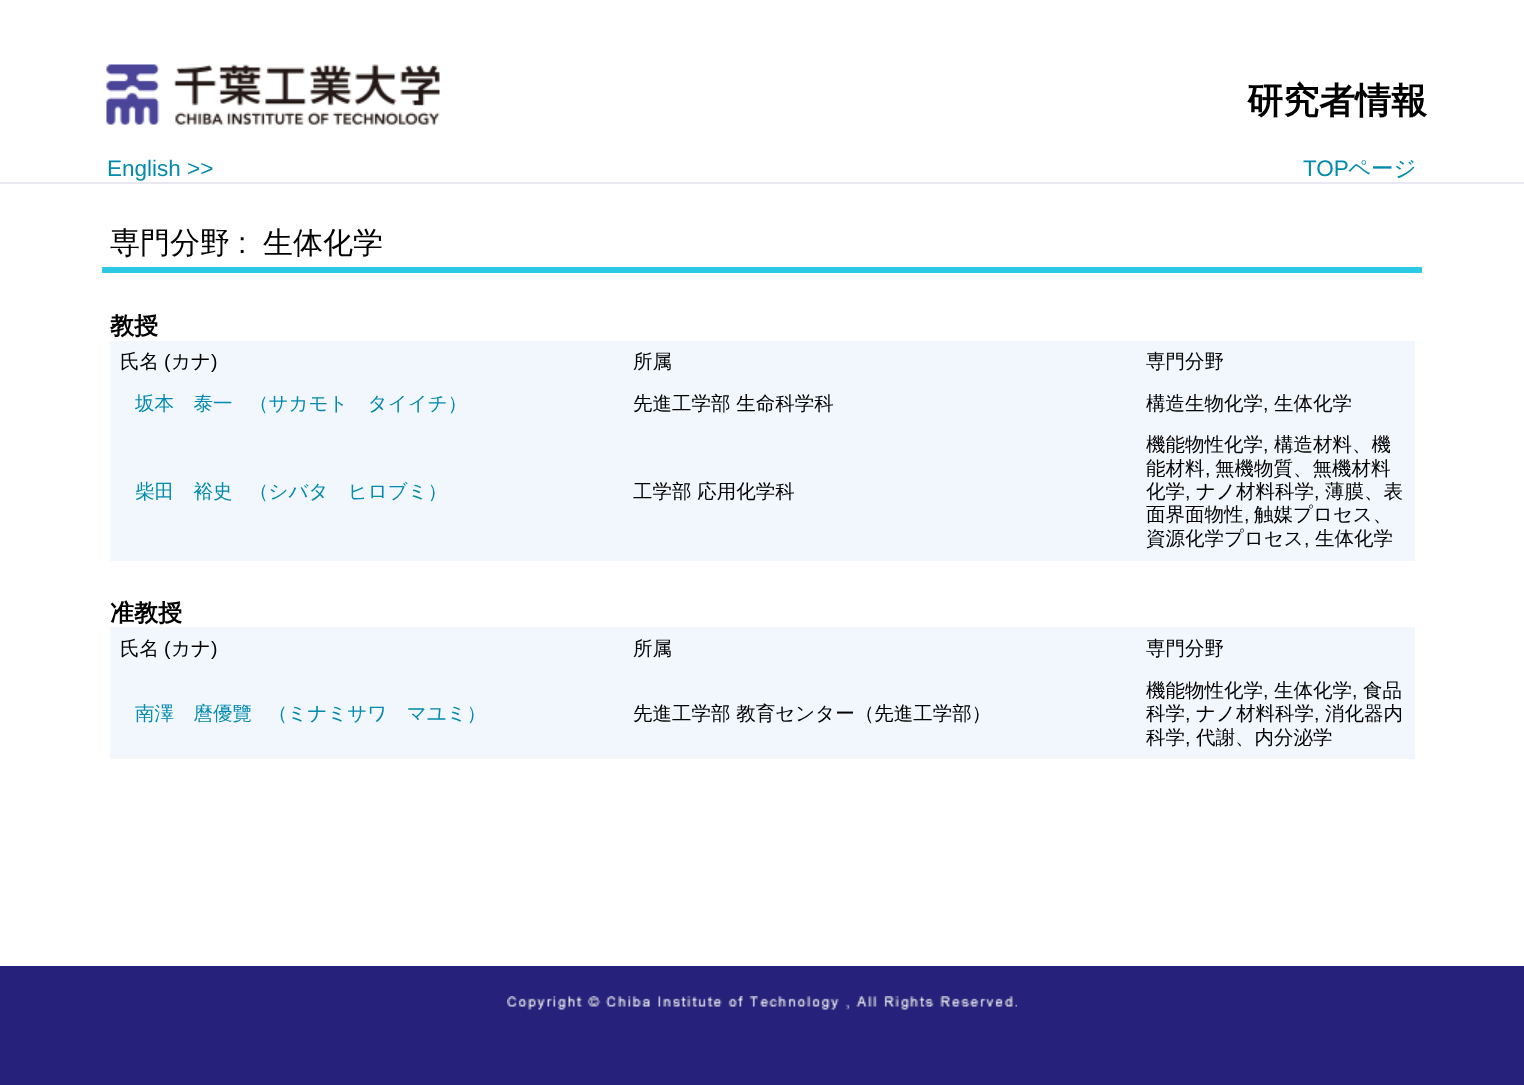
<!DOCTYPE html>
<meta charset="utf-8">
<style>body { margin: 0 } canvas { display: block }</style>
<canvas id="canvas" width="1524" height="1085"></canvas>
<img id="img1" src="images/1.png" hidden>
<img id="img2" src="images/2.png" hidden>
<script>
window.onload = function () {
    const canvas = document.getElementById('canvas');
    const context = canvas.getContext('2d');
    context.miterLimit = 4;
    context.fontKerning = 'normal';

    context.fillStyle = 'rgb(255, 255, 255)';
    context.fillRect(0, 0, 1524, 1085);
    context.fillStyle = 'rgb(233, 232, 242)';
    context.fillRect(0, 182, 1524, 2);
    context.drawImage(document.getElementById('img1'), 106, 64, 334, 61);
    context.fillStyle = 'rgb(44, 201, 229)';
    context.fillRect(102, 267, 1320, 6);
    context.fillStyle = 'rgb(242, 247, 254)';
    context.fillRect(110, 341, 1305, 220);
    context.fillRect(110, 627, 1305, 132);
    context.fillStyle = 'rgb(38, 34, 124)';
    context.fillRect(0, 966, 1524, 119);
    context.drawImage(document.getElementById('img2'), 507, 996, 510, 14);
    context.font = 'bold 36px WenQuanYi Zen Hei';
    context.fillStyle = 'rgb(0, 0, 0)';
    context.fillText('研究者情報', 1247, 113);
    context.font = '22.5px Liberation Sans';
    context.fillStyle = 'rgb(3, 138, 172)';
    context.fillText('English >>', 107, 176);
    context.fillText('TOP', 1303, 176);
    context.font = '500 22.5px WenQuanYi Zen Hei';
    context.fillText('ページ', 1348, 176);
    context.font = '500 30px WenQuanYi Zen Hei';
    context.fillStyle = 'rgb(0, 0, 0)';
    context.fillText('専門分野', 110, 253);
    context.font = '30px Liberation Sans';
    context.fillText(':', 238, 253);
    context.font = '500 30px WenQuanYi Zen Hei';
    context.fillText('生体化学', 263, 253);
    context.font = 'bold 24px WenQuanYi Zen Hei';
    context.fillText('教授', 110, 334);
    context.font = '500 19.5px WenQuanYi Zen Hei';
    context.fillText('氏名', 120, 368);
    context.font = '19.5px Liberation Sans';
    context.fillText('(', 164, 368);
    context.font = '500 19.5px WenQuanYi Zen Hei';
    context.fillText('カナ', 171, 368);
    context.font = '19.5px Liberation Sans';
    context.fillText(')', 211, 368);
    context.font = '500 19.5px WenQuanYi Zen Hei';
    context.fillText('所属', 633, 368);
    context.fillText('専門分野', 1146, 368);
    context.fillStyle = 'rgb(3, 138, 172)';
    context.fillText('坂本　泰一', 135, 410);
    context.fillText('（サカモト　タイイチ）', 249, 410);
    context.fillStyle = 'rgb(0, 0, 0)';
    context.fillText('先進工学部 生命科学科', 633, 410);
    context.fillText('構造生物化学', 1146, 410);
    context.font = '19.5px Liberation Sans';
    context.fillText(',', 1263, 410);
    context.font = '500 19.5px WenQuanYi Zen Hei';
    context.fillText('生体化学', 1274, 410);
    context.fillStyle = 'rgb(3, 138, 172)';
    context.fillText('柴田　裕史', 135, 498);
    context.fillText('（シバタ　ヒロブミ）', 249, 498);
    context.fillStyle = 'rgb(0, 0, 0)';
    context.fillText('工学部 応用化学科', 633, 498);
    context.fillText('機能物性化学', 1146, 451);
    context.font = '19.5px Liberation Sans';
    context.fillText(',', 1263, 451);
    context.font = '500 19.5px WenQuanYi Zen Hei';
    context.fillText('構造材料、機', 1274, 451);
    context.fillText('能材料', 1146, 475);
    context.font = '19.5px Liberation Sans';
    context.fillText(',', 1205, 475);
    context.font = '500 19.5px WenQuanYi Zen Hei';
    context.fillText('無機物質、無機材料', 1215, 475);
    context.fillText('化学', 1146, 498);
    context.font = '19.5px Liberation Sans';
    context.fillText(',', 1185, 498);
    context.font = '500 19.5px WenQuanYi Zen Hei';
    context.fillText('ナノ材料科学', 1196, 498);
    context.font = '19.5px Liberation Sans';
    context.fillText(',', 1314, 498);
    context.font = '500 19.5px WenQuanYi Zen Hei';
    context.fillText('薄膜、表', 1325, 498);
    context.fillText('面界面物性', 1146, 521);
    context.font = '19.5px Liberation Sans';
    context.fillText(',', 1244, 521);
    context.font = '500 19.5px WenQuanYi Zen Hei';
    context.fillText('触媒プロセス、', 1254, 521);
    context.fillText('資源化学プロセス', 1146, 545);
    context.font = '19.5px Liberation Sans';
    context.fillText(',', 1304, 545);
    context.font = '500 19.5px WenQuanYi Zen Hei';
    context.fillText('生体化学', 1315, 545);
    context.font = 'bold 24px WenQuanYi Zen Hei';
    context.fillText('准教授', 110, 621);
    context.font = '500 19.5px WenQuanYi Zen Hei';
    context.fillText('氏名', 120, 655);
    context.font = '19.5px Liberation Sans';
    context.fillText('(', 164, 655);
    context.font = '500 19.5px WenQuanYi Zen Hei';
    context.fillText('カナ', 171, 655);
    context.font = '19.5px Liberation Sans';
    context.fillText(')', 211, 655);
    context.font = '500 19.5px WenQuanYi Zen Hei';
    context.fillText('所属', 633, 655);
    context.fillText('専門分野', 1146, 655);
    context.fillStyle = 'rgb(3, 138, 172)';
    context.fillText('南澤　麿優覽', 135, 720);
    context.fillText('（ミナミサワ　マユミ）', 268, 720);
    context.fillStyle = 'rgb(0, 0, 0)';
    context.fillText('先進工学部 教育センター（先進工学部）', 633, 720);
    context.fillText('機能物性化学', 1146, 697);
    context.font = '19.5px Liberation Sans';
    context.fillText(',', 1263, 697);
    context.font = '500 19.5px WenQuanYi Zen Hei';
    context.fillText('生体化学', 1274, 697);
    context.font = '19.5px Liberation Sans';
    context.fillText(',', 1352, 697);
    context.font = '500 19.5px WenQuanYi Zen Hei';
    context.fillText('食品', 1363, 697);
    context.fillText('科学', 1146, 720);
    context.font = '19.5px Liberation Sans';
    context.fillText(',', 1185, 720);
    context.font = '500 19.5px WenQuanYi Zen Hei';
    context.fillText('ナノ材料科学', 1196, 720);
    context.font = '19.5px Liberation Sans';
    context.fillText(',', 1314, 720);
    context.font = '500 19.5px WenQuanYi Zen Hei';
    context.fillText('消化器内', 1325, 720);
    context.fillText('科学', 1146, 744);
    context.font = '19.5px Liberation Sans';
    context.fillText(',', 1185, 744);
    context.font = '500 19.5px WenQuanYi Zen Hei';
    context.fillText('代謝、内分泌学', 1196, 744);
};
</script>
